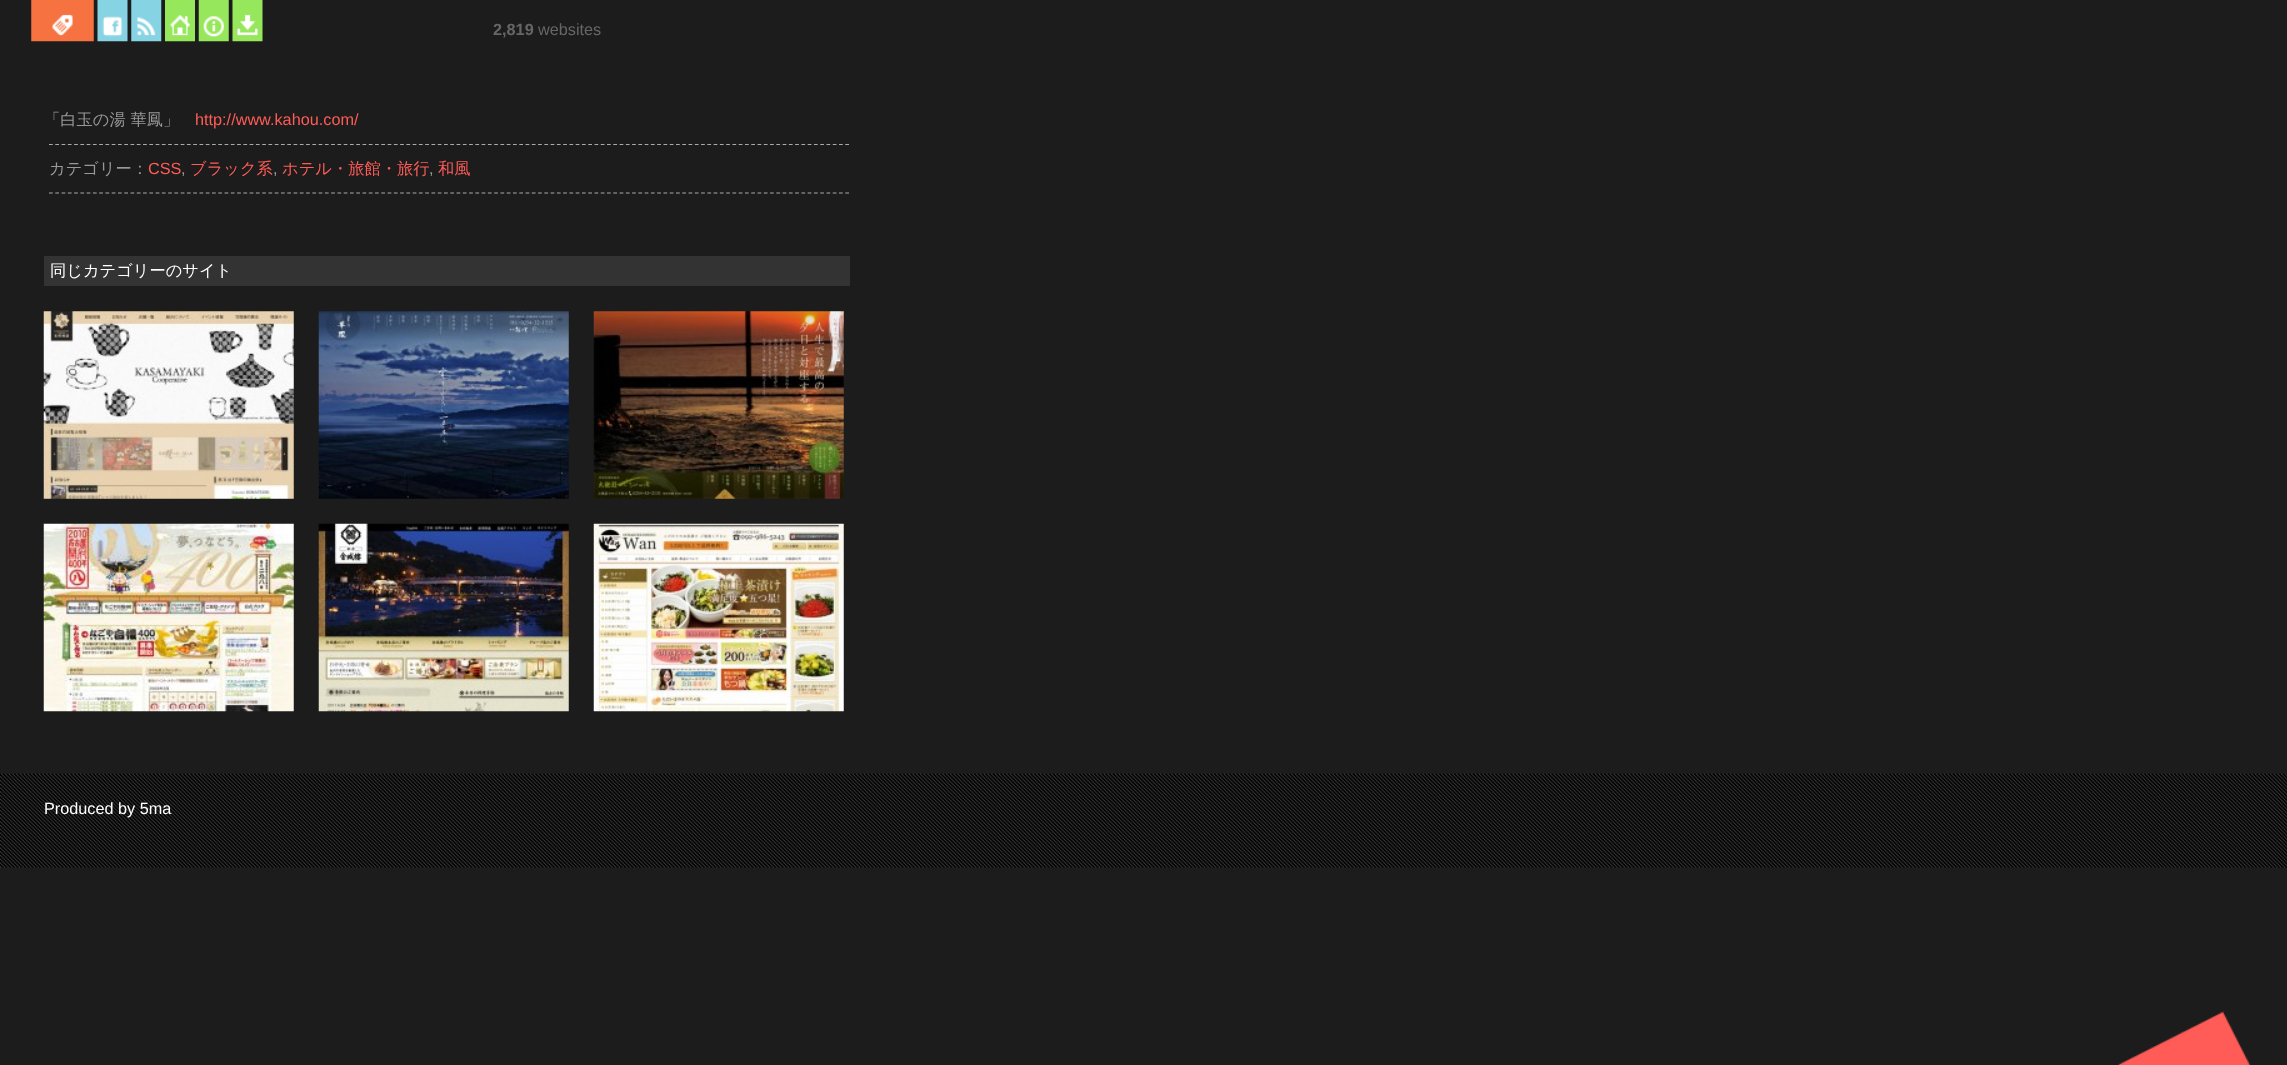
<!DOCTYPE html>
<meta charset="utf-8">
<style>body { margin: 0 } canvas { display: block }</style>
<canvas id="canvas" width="2287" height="1065"></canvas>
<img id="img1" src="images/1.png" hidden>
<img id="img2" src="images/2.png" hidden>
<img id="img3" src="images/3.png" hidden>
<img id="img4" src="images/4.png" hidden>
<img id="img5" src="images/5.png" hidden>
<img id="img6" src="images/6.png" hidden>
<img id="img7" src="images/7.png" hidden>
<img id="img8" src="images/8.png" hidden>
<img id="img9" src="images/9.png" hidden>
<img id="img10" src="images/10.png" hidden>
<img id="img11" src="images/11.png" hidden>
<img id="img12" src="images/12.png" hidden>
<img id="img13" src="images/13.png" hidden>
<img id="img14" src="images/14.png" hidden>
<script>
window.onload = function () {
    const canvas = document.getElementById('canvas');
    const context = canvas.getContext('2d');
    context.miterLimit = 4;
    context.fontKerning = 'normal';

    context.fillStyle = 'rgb(28, 28, 28)';
    context.fillRect(0, 0, 2287, 1065);
    context.drawImage(document.getElementById('img1'), 31, 0, 63, 42);
    context.drawImage(document.getElementById('img2'), 97, 0, 31, 42);
    context.drawImage(document.getElementById('img3'), 131, 0, 31, 42);
    context.drawImage(document.getElementById('img4'), 165, 0, 30, 42);
    context.drawImage(document.getElementById('img5'), 198, 0, 31, 42);
    context.drawImage(document.getElementById('img6'), 232, 0, 31, 42);
    context.beginPath();
    context.moveTo(49, 144.5);
    context.lineTo(849, 144.5);
    context.strokeStyle = 'rgb(170, 170, 170)';
    context.lineWidth = 1.2;
    context.setLineDash([3.75, 2.52]);
    context.stroke();
    context.beginPath();
    context.moveTo(49, 193);
    context.lineTo(849, 193);
    context.stroke();
    context.fillStyle = 'rgb(51, 51, 51)';
    context.fillRect(44, 256, 806, 30);
    context.drawImage(document.getElementById('img7'), 43, 311, 251, 188);
    context.drawImage(document.getElementById('img8'), 318, 311, 251, 188);
    context.drawImage(document.getElementById('img9'), 593, 311, 251, 188);
    context.drawImage(document.getElementById('img10'), 43, 523, 251, 189);
    context.drawImage(document.getElementById('img11'), 318, 523, 251, 189);
    context.drawImage(document.getElementById('img12'), 593, 523, 251, 189);
    context.drawImage(document.getElementById('img13'), 0, 773, 2287, 95);
    context.drawImage(document.getElementById('img14'), 2117, 1011, 134, 54);
    context.font = 'bold 16.25px Liberation Sans';
    context.fillStyle = 'rgb(102, 102, 102)';
    context.fillText('2,819', 493, 35);
    context.font = '16.25px Liberation Sans';
    context.fillText('websites', 538, 35);
    context.font = '500 16.25px WenQuanYi Zen Hei';
    context.fillStyle = 'rgb(153, 153, 153)';
    context.fillText('「白玉の湯 華鳳」', 44, 125);
    context.font = '16.25px Liberation Sans';
    context.fillStyle = 'rgb(255, 92, 87)';
    context.fillText('http://www.kahou.com/', 195, 125);
    context.font = '500 16.25px WenQuanYi Zen Hei';
    context.fillStyle = 'rgb(153, 153, 153)';
    context.fillText('カテゴリー：', 49, 174);
    context.font = '16.25px Liberation Sans';
    context.fillStyle = 'rgb(255, 92, 87)';
    context.fillText('CSS', 148, 174);
    context.fillStyle = 'rgb(153, 153, 153)';
    context.fillText(',', 181, 174);
    context.font = '500 16.25px WenQuanYi Zen Hei';
    context.fillStyle = 'rgb(255, 92, 87)';
    context.fillText('ブラック系', 190, 174);
    context.font = '16.25px Liberation Sans';
    context.fillStyle = 'rgb(153, 153, 153)';
    context.fillText(',', 273, 174);
    context.font = '500 16.25px WenQuanYi Zen Hei';
    context.fillStyle = 'rgb(255, 92, 87)';
    context.fillText('ホテル・旅館・旅行', 282, 174);
    context.font = '16.25px Liberation Sans';
    context.fillStyle = 'rgb(153, 153, 153)';
    context.fillText(',', 429, 174);
    context.font = '500 16.25px WenQuanYi Zen Hei';
    context.fillStyle = 'rgb(255, 92, 87)';
    context.fillText('和風', 438, 174);
    context.fillStyle = 'rgb(255, 255, 255)';
    context.fillText('同じカテゴリーのサイト', 50, 276);
    context.font = '16.25px Liberation Sans';
    context.fillText('Produced by 5ma', 44, 814);
};
</script>
